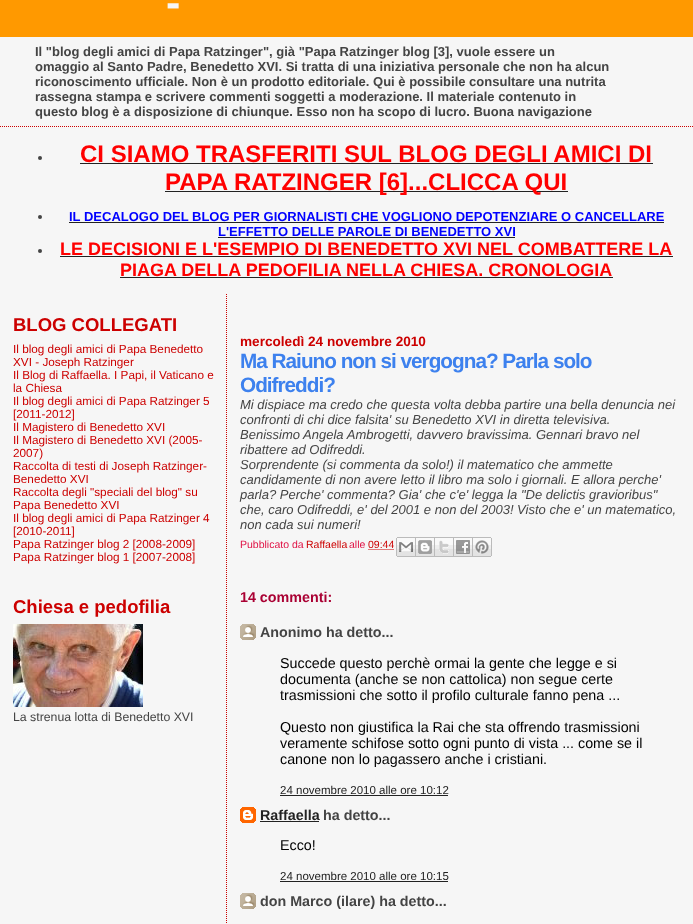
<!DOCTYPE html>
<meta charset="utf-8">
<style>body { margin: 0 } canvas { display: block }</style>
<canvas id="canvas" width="693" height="924"></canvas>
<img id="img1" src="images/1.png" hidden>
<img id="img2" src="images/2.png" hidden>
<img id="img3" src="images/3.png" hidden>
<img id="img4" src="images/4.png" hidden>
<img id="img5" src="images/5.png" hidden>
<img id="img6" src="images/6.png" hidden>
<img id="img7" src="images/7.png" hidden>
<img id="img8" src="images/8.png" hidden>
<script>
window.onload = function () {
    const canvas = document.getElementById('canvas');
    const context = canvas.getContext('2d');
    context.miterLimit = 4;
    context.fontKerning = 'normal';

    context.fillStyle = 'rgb(246, 246, 246)';
    context.fillRect(0, 0, 693, 924);
    context.beginPath();
    context.moveTo(0, 126.5);
    context.lineTo(693, 126.5);
    context.strokeStyle = 'rgb(204, 0, 0)';
    context.setLineDash([1, 1]);
    context.stroke();
    context.fillStyle = 'rgb(255, 153, 0)';
    context.fillRect(0, 0, 693, 37);
    context.fillStyle = 'rgb(68, 68, 68)';
    context.beginPath();
    context.arc(40, 158, 2, 0, 2 * Math.PI);
    context.fill();
    context.fillStyle = 'rgb(34, 34, 34)';
    context.fillRect(80, 163, 573, 1);
    context.fillRect(165, 191, 403, 1);
    context.fillStyle = 'rgb(68, 68, 68)';
    context.beginPath();
    context.arc(40, 217, 2, 0, 2 * Math.PI);
    context.fill();
    context.fillStyle = 'rgb(34, 34, 34)';
    context.fillRect(69, 222, 595, 1);
    context.fillRect(218, 237, 297, 1);
    context.fillStyle = 'rgb(68, 68, 68)';
    context.beginPath();
    context.arc(40, 251, 2, 0, 2 * Math.PI);
    context.fill();
    context.fillStyle = 'rgb(34, 34, 34)';
    context.fillRect(60, 256, 613, 1);
    context.fillRect(120, 277, 493, 1);
    context.drawImage(document.getElementById('img1'), 13, 624, 130, 83);
    context.beginPath();
    context.moveTo(226.5, 294);
    context.lineTo(226.5, 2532);
    context.stroke();
    context.beginPath();
    context.moveTo(368.5, 549.5);
    context.lineTo(394.5, 549.5);
    context.stroke();
    context.drawImage(document.getElementById('img2'), 396, 537, 20, 20);
    context.drawImage(document.getElementById('img3'), 416, 537, 19, 20);
    context.drawImage(document.getElementById('img4'), 435, 537, 19, 20);
    context.drawImage(document.getElementById('img5'), 454, 537, 19, 20);
    context.drawImage(document.getElementById('img6'), 473, 537, 19, 20);
    context.drawImage(document.getElementById('img7'), 240, 624, 16, 16);
    context.fillRect(280, 795, 168, 1);
    context.drawImage(document.getElementById('img8'), 240, 807, 16, 16);
    context.fillRect(260, 821, 59, 1);
    context.fillRect(280, 881, 168, 1);
    context.drawImage(document.getElementById('img7'), 240, 893, 16, 16);
    context.letterSpacing = '-2px';
    context.font = 'bold 43px Liberation Sans';
    context.fillStyle = 'rgb(246, 246, 246)';
    context.fillText('-', 166, 17);
    context.letterSpacing = '0px';
    context.font = 'bold 13px Liberation Sans';
    context.fillStyle = 'rgb(68, 68, 68)';
    context.fillText('Il "blog degli amici di Papa Ratzinger", già "Papa Ratzinger blog [3], vuole essere un', 35, 56);
    context.fillText('omaggio al Santo Padre, Benedetto XVI. Si tratta di una iniziativa personale che non ha alcun', 35, 71);
    context.fillText('riconoscimento ufficiale. Non è un prodotto editoriale. Qui è possibile consultare una nutrita', 35, 86);
    context.fillText('rassegna stampa e scrivere commenti soggetti a moderazione. Il materiale contenuto in', 35, 101);
    context.fillText('questo blog è a disposizione di chiunque. Esso non ha scopo di lucro. Buona navigazione', 35, 116);
    context.font = 'bold 24px Liberation Sans';
    context.fillStyle = 'rgb(255, 0, 0)';
    context.fillText('CI SIAMO TRASFERITI SUL BLOG DEGLI AMICI DI', 80, 162);
    context.fillText('PAPA RATZINGER [6]...CLICCA QUI', 165, 190);
    context.font = 'bold 13px Liberation Sans';
    context.fillStyle = 'rgb(0, 0, 255)';
    context.fillText('IL DECALOGO DEL BLOG PER GIORNALISTI CHE VOGLIONO DEPOTENZIARE O CANCELLARE', 69, 221);
    context.fillText('L\'EFFETTO DELLE PAROLE DI BENEDETTO XVI', 218, 236);
    context.font = 'bold 18px Liberation Sans';
    context.fillStyle = 'rgb(255, 0, 0)';
    context.fillText('LE DECISIONI E L\'ESEMPIO DI BENEDETTO XVI NEL COMBATTERE LA', 60, 255);
    context.fillText('PIAGA DELLA PEDOFILIA NELLA CHIESA. CRONOLOGIA', 120, 276);
    context.font = 'bold 18.5px Liberation Sans';
    context.fillStyle = 'rgb(204, 0, 0)';
    context.fillText('BLOG COLLEGATI', 13, 331);
    context.font = '11.75px Liberation Sans';
    context.fillText('Il blog degli amici di Papa Benedetto', 13, 353);
    context.fillText('XVI - Joseph Ratzinger', 13, 366);
    context.fillText('Il Blog di Raffaella. I Papi, il Vaticano e', 13, 379);
    context.fillText('la Chiesa', 13, 392);
    context.fillText('Il blog degli amici di Papa Ratzinger 5', 13, 405);
    context.fillText('[2011-2012]', 13, 418);
    context.fillText('Il Magistero di Benedetto XVI', 13, 431);
    context.fillText('Il Magistero di Benedetto XVI (2005-', 13, 444);
    context.fillText('2007)', 13, 457);
    context.fillText('Raccolta di testi di Joseph Ratzinger-', 13, 470);
    context.fillText('Benedetto XVI', 13, 483);
    context.fillText('Raccolta degli "speciali del blog" su', 13, 496);
    context.fillText('Papa Benedetto XVI', 13, 509);
    context.fillText('Il blog degli amici di Papa Ratzinger 4', 13, 522);
    context.fillText('[2010-2011]', 13, 535);
    context.fillText('Papa Ratzinger blog 2 [2008-2009]', 13, 548);
    context.fillText('Papa Ratzinger blog 1 [2007-2008]', 13, 561);
    context.font = 'bold 18.5px Liberation Sans';
    context.fillText('Chiesa e pedofilia', 13, 613);
    context.font = '12.3px Liberation Sans';
    context.fillStyle = 'rgb(68, 68, 68)';
    context.fillText('La strenua lotta di Benedetto XVI', 13, 721);
    context.font = 'bold 13.6px Liberation Sans';
    context.fillStyle = 'rgb(204, 0, 0)';
    context.fillText('mercoledì 24 novembre 2010', 240, 346);
    context.letterSpacing = '-1px';
    context.font = 'bold 20.75px Liberation Sans';
    context.fillStyle = 'rgb(61, 129, 238)';
    context.fillText('Ma Raiuno non si vergogna? Parla solo', 240, 368);
    context.fillText('Odifreddi?', 240, 392);
    context.letterSpacing = '0px';
    context.font = 'italic 13px Liberation Sans';
    context.fillStyle = 'rgb(68, 68, 68)';
    context.fillText('Mi dispiace ma credo che questa volta debba partire una bella denuncia nei', 240, 409);
    context.fillText('confronti di chi dice falsita\' su Benedetto XVI in diretta televisiva.', 240, 424);
    context.fillText('Benissimo Angela Ambrogetti, davvero bravissima. Gennari bravo nel', 240, 439);
    context.fillText('ribattere ad Odifreddi.', 240, 454);
    context.fillText('Sorprendente (si commenta da solo!) il matematico che ammette', 240, 469);
    context.fillText('candidamente di non avere letto il libro ma solo i giornali. E allora perche\'', 240, 484);
    context.fillText('parla? Perche\' commenta? Gia\' che c\'e\' legga la "De delictis gravioribus"', 240, 499);
    context.fillText('che, caro Odifreddi, e\' del 2001 e non del 2003! Visto che e\' un matematico,', 240, 514);
    context.fillText('non cada sui numeri!', 240, 529);
    context.font = '10.5px Liberation Sans';
    context.fillStyle = 'rgb(224, 18, 69)';
    context.fillText('Pubblicato da', 240, 548);
    context.fillStyle = 'rgb(204, 0, 0)';
    context.fillText('Raffaella', 306, 548);
    context.fillStyle = 'rgb(224, 18, 69)';
    context.fillText('alle', 349, 548);
    context.fillStyle = 'rgb(204, 0, 0)';
    context.fillText('09:44', 368, 548);
    context.font = 'bold 14.3px Liberation Sans';
    context.fillStyle = 'rgb(170, 0, 51)';
    context.fillText('14 commenti:', 240, 602);
    context.fillStyle = 'rgb(68, 68, 68)';
    context.fillText('Anonimo ha detto...', 260, 637);
    context.font = '14.3px Liberation Sans';
    context.fillStyle = 'rgb(0, 0, 0)';
    context.fillText('Succede questo perchè ormai la gente che legge e si', 280, 668);
    context.fillText('documenta (anche se non cattolica) non segue certe', 280, 684);
    context.fillText('trasmissioni che sotto il profilo culturale fanno pena ...', 280, 700);
    context.fillText('Questo non giustifica la Rai che sta offrendo trasmissioni', 280, 732);
    context.fillText('veramente schifose sotto ogni punto di vista ... come se il', 280, 748);
    context.fillText('canone non lo pagassero anche i cristiani.', 280, 764);
    context.font = '11.5px Liberation Sans';
    context.fillStyle = 'rgb(34, 34, 34)';
    context.fillText('24 novembre 2010 alle ore 10:12', 280, 794);
    context.font = 'bold 14.3px Liberation Sans';
    context.fillText('Raffaella', 260, 820);
    context.fillStyle = 'rgb(68, 68, 68)';
    context.fillText('ha detto...', 323, 820);
    context.font = '14.3px Liberation Sans';
    context.fillStyle = 'rgb(0, 0, 0)';
    context.fillText('Ecco!', 280, 850);
    context.font = '11.5px Liberation Sans';
    context.fillStyle = 'rgb(34, 34, 34)';
    context.fillText('24 novembre 2010 alle ore 10:15', 280, 880);
    context.font = 'bold 14.3px Liberation Sans';
    context.fillStyle = 'rgb(68, 68, 68)';
    context.fillText('don Marco (ilare) ha detto...', 260, 906);
};
</script>
